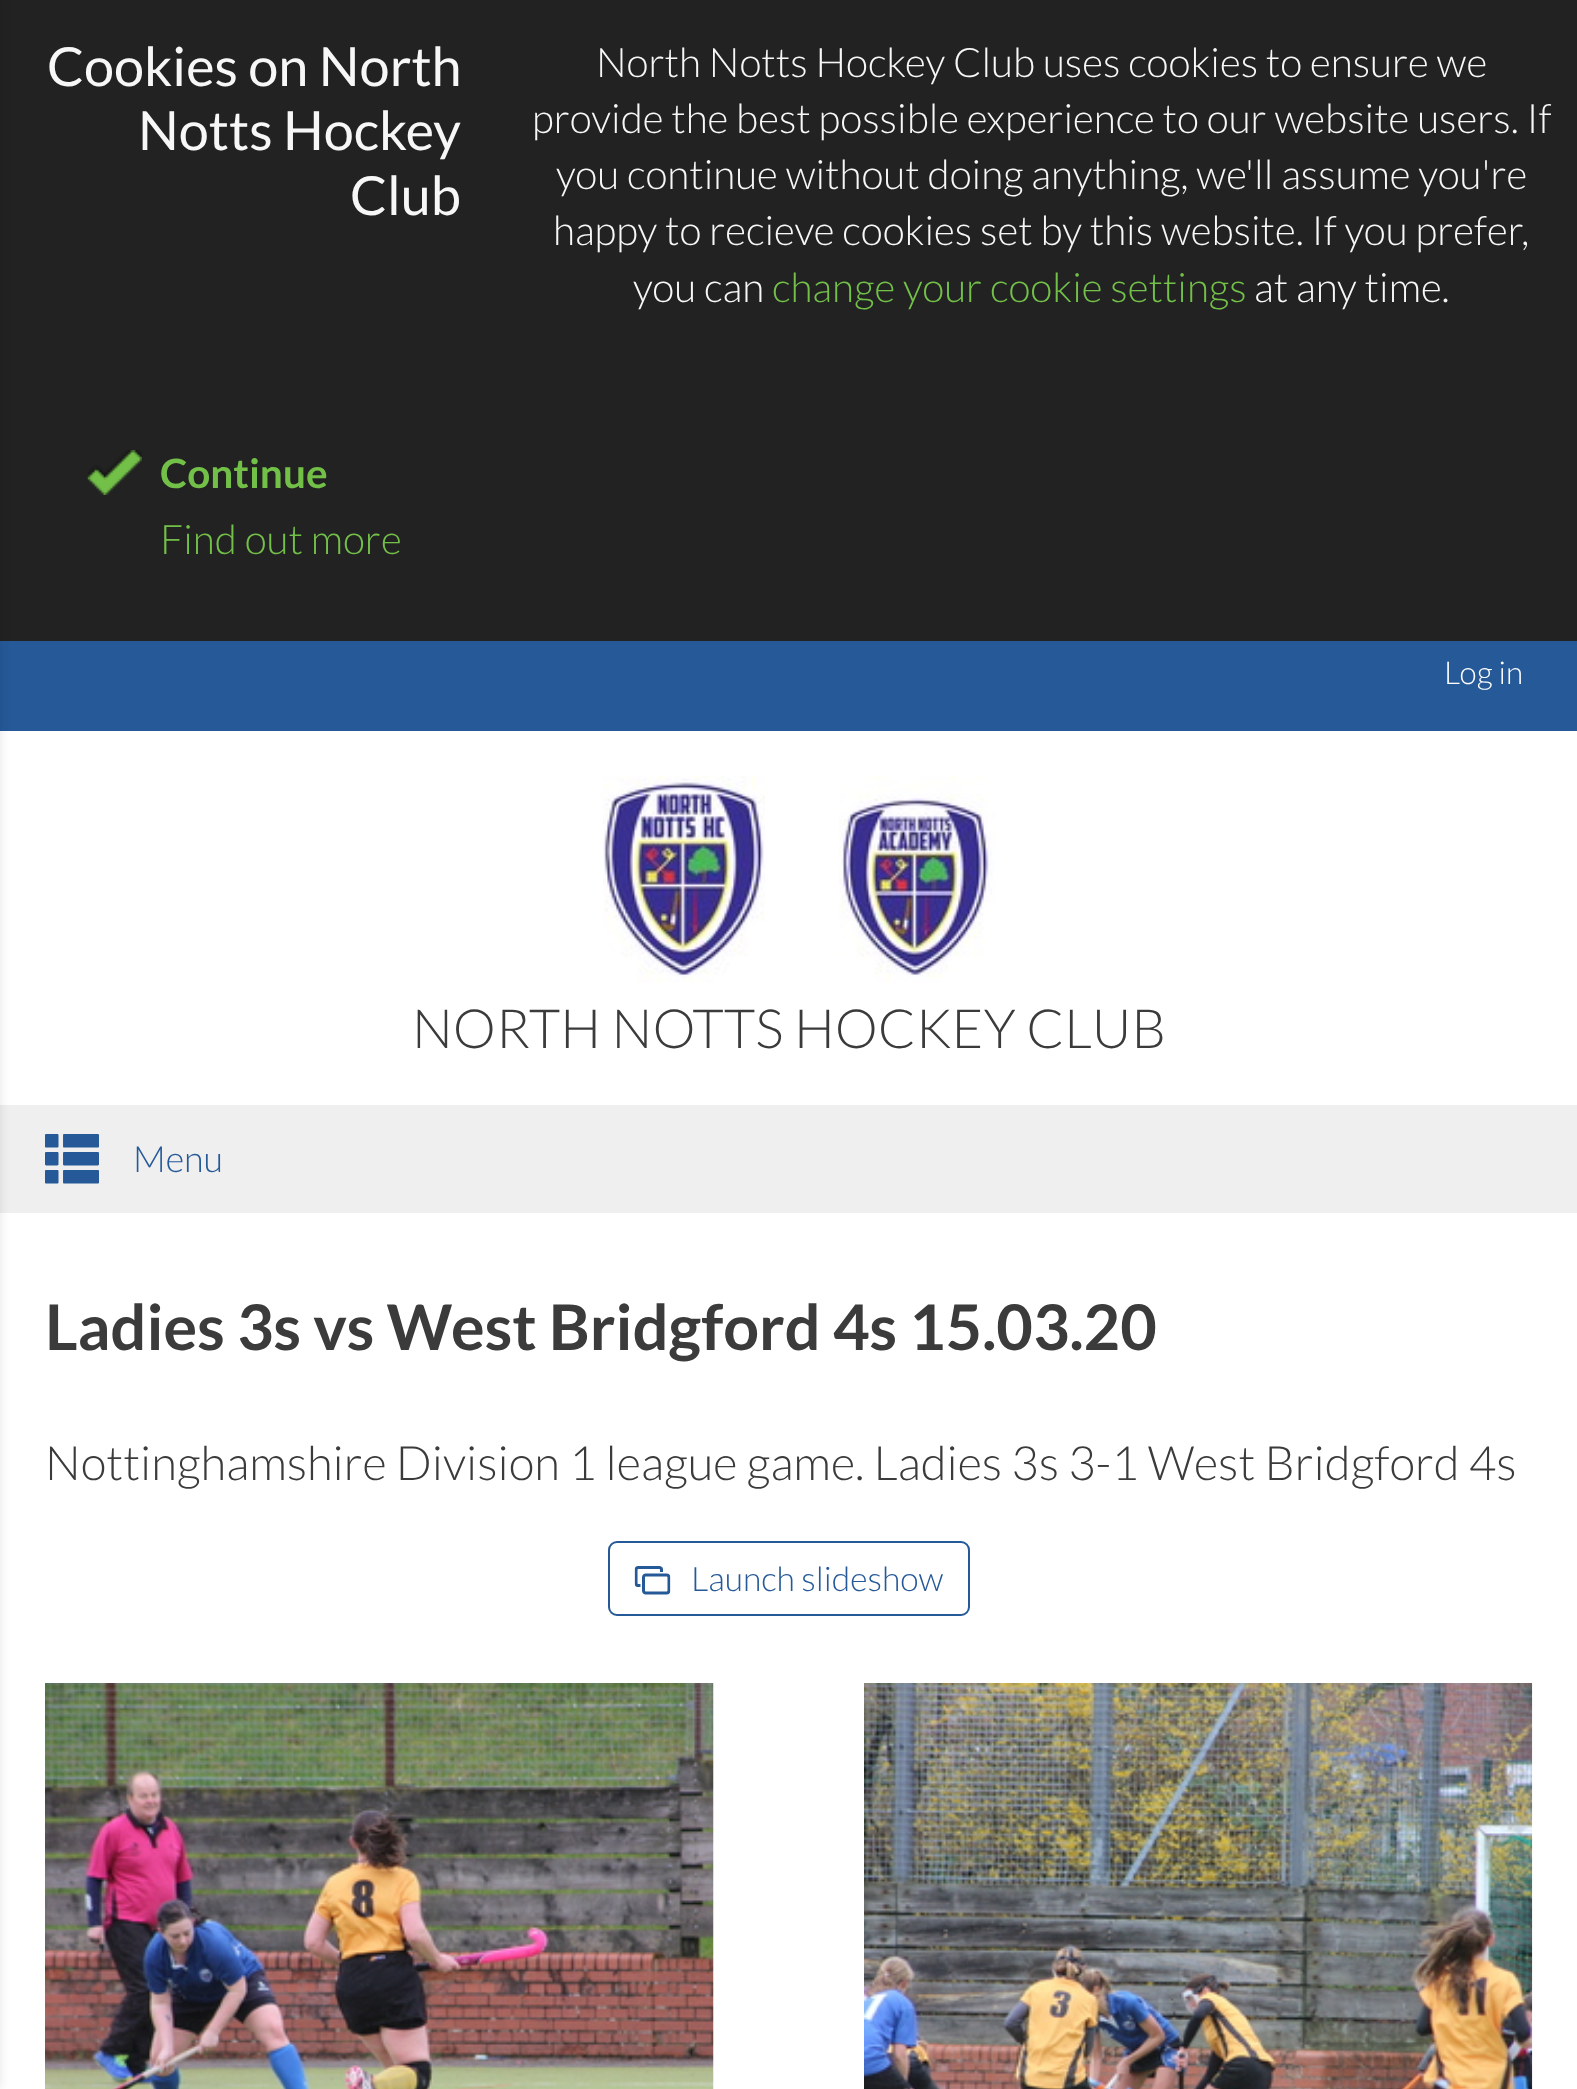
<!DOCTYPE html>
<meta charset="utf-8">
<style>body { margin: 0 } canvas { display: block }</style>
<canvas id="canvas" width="1577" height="2089"></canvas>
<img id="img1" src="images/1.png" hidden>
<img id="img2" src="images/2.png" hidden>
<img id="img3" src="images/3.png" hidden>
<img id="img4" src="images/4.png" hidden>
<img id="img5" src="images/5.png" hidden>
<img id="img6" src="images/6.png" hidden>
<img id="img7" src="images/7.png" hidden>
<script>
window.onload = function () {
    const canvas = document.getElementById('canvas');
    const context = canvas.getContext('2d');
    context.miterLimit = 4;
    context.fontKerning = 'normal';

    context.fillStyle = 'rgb(34, 34, 34)';
    context.fillRect(0, 0, 1577, 2089);
    context.fillStyle = 'rgb(255, 255, 255)';
    context.fillRect(0, 731, 1577, 1358);
    context.fillStyle = 'rgb(37, 89, 151)';
    context.fillRect(0, 641, 1577, 90);
    context.fillStyle = 'rgb(239, 239, 239)';
    context.fillRect(0, 1105, 1577, 108);
    context.fillStyle = 'rgba(0, 0, 0, 0.1)';
    context.filter = 'blur(5.5px)';
    context.beginPath();
    context.rect(-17, 0, 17, 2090);
    context.fill();
    context.filter = 'none';
    context.drawImage(document.getElementById('img1'), 87, 450, 55, 45);
    context.drawImage(document.getElementById('img2'), 603, 776, 162, 207);
    context.drawImage(document.getElementById('img3'), 839, 776, 157, 207);
    context.drawImage(document.getElementById('img4'), 45, 1134, 54, 50);
    context.beginPath();
    context.roundRect(609, 1542, 360, 73, 8);
    context.strokeStyle = 'rgb(37, 89, 151)';
    context.lineWidth = 2;
    context.stroke();
    context.drawImage(document.getElementById('img5'), 634, 1566, 37, 29);
    context.drawImage(document.getElementById('img6'), 45, 1683, 669, 406);
    context.drawImage(document.getElementById('img7'), 864, 1683, 669, 406);
    context.font = '54px Lato';
    context.fillStyle = 'rgb(247, 247, 247)';
    context.fillText('Cookies on North', 47, 86);
    context.fillText('Notts Hockey', 138, 150);
    context.fillText('Club', 350, 215);
    context.font = '300 40.5px Lato';
    context.fillText('North Notts Hockey Club uses cookies to ensure we', 596, 77);
    context.fillText('provide the best possible experience to our website users. If', 532, 133);
    context.fillText('you continue without doing anything, we\'ll assume you\'re', 556, 189);
    context.fillText('happy to recieve cookies set by this website. If you prefer,', 553, 245);
    context.fillText('you can', 633, 302);
    context.fillStyle = 'rgb(115, 192, 73)';
    context.fillText('change your cookie settings', 772, 302);
    context.fillStyle = 'rgb(247, 247, 247)';
    context.fillText('at any time.', 1254, 302);
    context.font = 'bold 40.5px Lato';
    context.fillStyle = 'rgb(115, 192, 73)';
    context.fillText('Continue', 160, 488);
    context.font = '300 40.5px Lato';
    context.fillText('Find out more', 160, 554);
    context.font = '300 31.5px Lato';
    context.fillStyle = 'rgb(255, 255, 255)';
    context.fillText('Log in', 1444, 684);
    context.font = '300 54px Lato';
    context.fillStyle = 'rgb(59, 59, 59)';
    context.fillText('NORTH NOTTS HOCKEY CLUB', 412, 1048);
    context.font = '300 36px Lato';
    context.fillStyle = 'rgb(37, 89, 151)';
    context.fillText('Menu', 133, 1172);
    context.font = 'bold 63px Lato';
    context.fillStyle = 'rgb(59, 59, 59)';
    context.fillText('Ladies 3s vs West Bridgford 4s 15.03.20', 45, 1350);
    context.font = '300 47.25px Lato';
    context.fillText('Nottinghamshire Division 1 league game. Ladies 3s 3-1 West Bridgford 4s', 45, 1480);
    context.font = '300 33.75px Lato';
    context.fillStyle = 'rgb(37, 89, 151)';
    context.fillText('Launch slideshow', 691, 1591);
};
</script>
